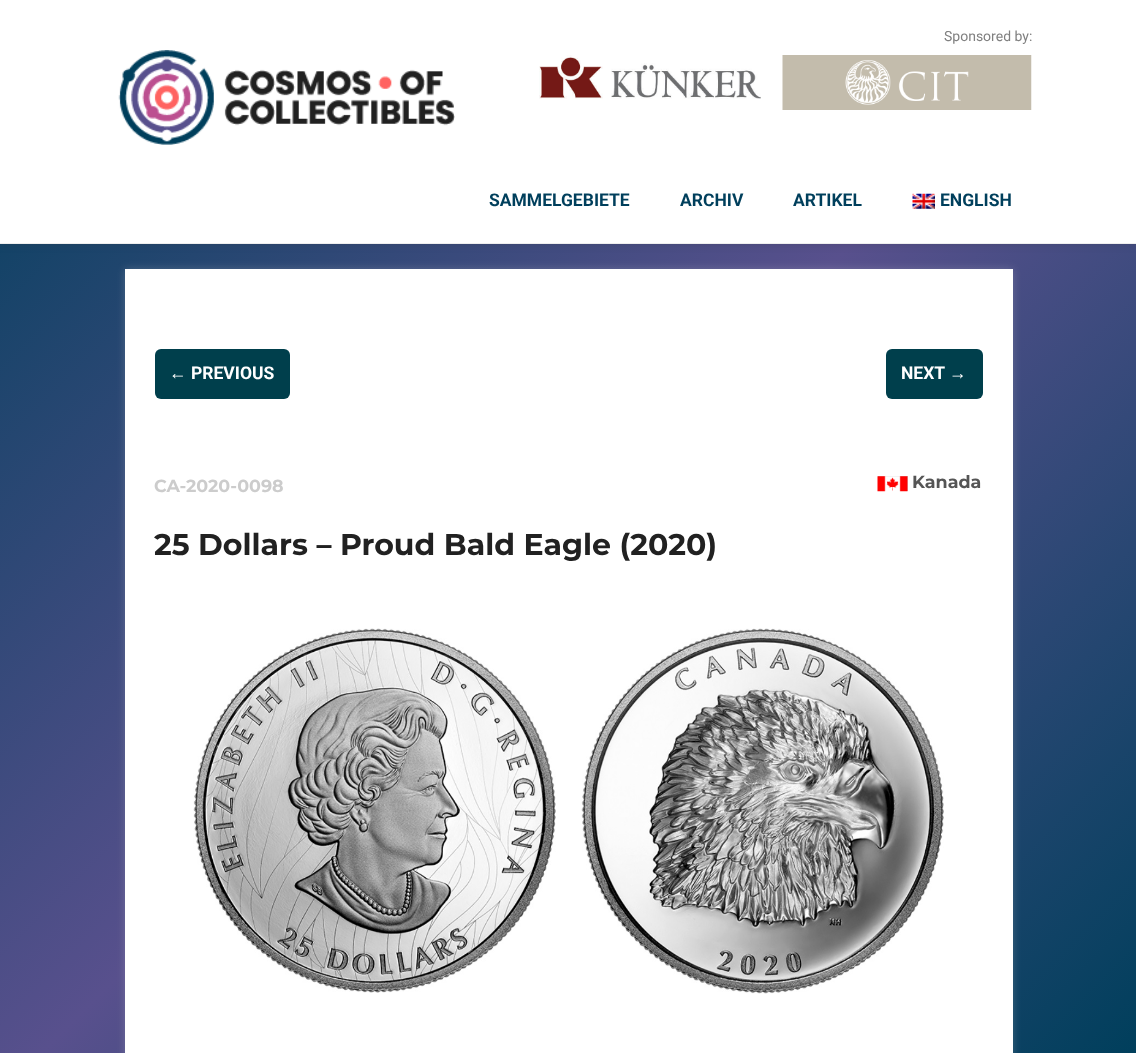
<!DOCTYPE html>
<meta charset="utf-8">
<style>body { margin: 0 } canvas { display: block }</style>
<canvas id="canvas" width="1136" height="1053"></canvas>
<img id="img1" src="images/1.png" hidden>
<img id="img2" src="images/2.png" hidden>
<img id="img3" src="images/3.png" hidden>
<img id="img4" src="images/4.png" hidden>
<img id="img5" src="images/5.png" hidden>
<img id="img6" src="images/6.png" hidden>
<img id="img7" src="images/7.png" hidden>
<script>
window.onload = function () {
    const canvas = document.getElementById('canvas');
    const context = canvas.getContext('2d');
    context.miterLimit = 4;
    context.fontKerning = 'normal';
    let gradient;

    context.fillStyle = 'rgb(255, 255, 255)';
    context.fillRect(0, 0, 1136, 1053);
    gradient = context.createLinearGradient(21, -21, 1116, 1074);
    gradient.addColorStop(0, 'rgb(0, 63, 92)');
    gradient.addColorStop(0.5, 'rgb(88, 80, 141)');
    gradient.addColorStop(1, 'rgb(0, 63, 92)');
    context.fillStyle = gradient;
    context.fillRect(0, 244, 1136, 809);
    context.fillStyle = 'rgba(51, 51, 51, 0.25)';
    context.filter = 'blur(4px)';
    context.beginPath();
    context.rect(0, 0, 1136, 244);
    context.fill();
    context.filter = 'none';
    context.fillStyle = 'rgb(255, 255, 255)';
    context.fillRect(0, 0, 1136, 243);
    context.fillStyle = 'rgb(238, 238, 238)';
    context.fillRect(0, 243, 1136, 1);
    context.drawImage(document.getElementById('img1'), 539, 55, 222, 44);
    context.drawImage(document.getElementById('img2'), 782, 55, 250, 55);
    context.drawImage(document.getElementById('img3'), 118, 50, 337, 95);
    context.drawImage(document.getElementById('img4'), 912, 193, 23, 16);
    context.fillStyle = 'rgba(204, 204, 204, 0.25)';
    context.filter = 'blur(4px)';
    context.beginPath();
    context.rect(125, 269, 888, 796);
    context.fill();
    context.filter = 'none';
    context.fillStyle = 'rgb(255, 255, 255)';
    context.fillRect(125, 269, 888, 784);
    context.fillStyle = 'rgb(0, 63, 76)';
    context.beginPath();
    context.roundRect(155, 349, 135, 50, 6);
    context.fill();
    context.beginPath();
    context.roundRect(886, 349, 97, 50, 6);
    context.fill();
    context.fillStyle = 'rgb(204, 204, 204)';
    context.filter = 'blur(0.5px)';
    context.beginPath();
    context.rect(878, 476, 30, 15);
    context.fill();
    context.filter = 'none';
    context.drawImage(document.getElementById('img5'), 877, 476, 31, 16);
    context.drawImage(document.getElementById('img6'), 193, 628, 363, 365);
    context.drawImage(document.getElementById('img7'), 581, 628, 363, 366);
    context.font = '14px Roboto';
    context.fillStyle = 'rgb(128, 128, 128)';
    context.fillText('Sponsored by:', 944, 41);
    context.font = 'bold 17.5px Roboto';
    context.fillStyle = 'rgb(0, 63, 92)';
    context.fillText('SAMMELGEBIETE', 489, 206);
    context.fillText('ARCHIV', 680, 206);
    context.fillText('ARTIKEL', 793, 206);
    context.fillText('ENGLISH', 940, 206);
    context.font = 'bold 17.5px Liberation Sans';
    context.fillStyle = 'rgb(255, 255, 255)';
    context.fillText('←', 169, 379);
    context.font = 'bold 17.5px Roboto';
    context.fillText('PREVIOUS', 191, 379);
    context.fillText('NEXT', 901, 379);
    context.font = 'bold 17.5px Liberation Sans';
    context.fillText('→', 949, 379);
    context.font = 'bold 17.5px Montserrat';
    context.fillStyle = 'rgb(204, 204, 204)';
    context.fillText('CA-2020-0098', 154, 492);
    context.fillStyle = 'rgb(85, 85, 85)';
    context.fillText('Kanada', 912, 488);
    context.font = 'bold 30px Montserrat';
    context.fillStyle = 'rgb(33, 33, 33)';
    context.fillText('25 Dollars – Proud Bald Eagle (2020)', 154, 555);
};
</script>
